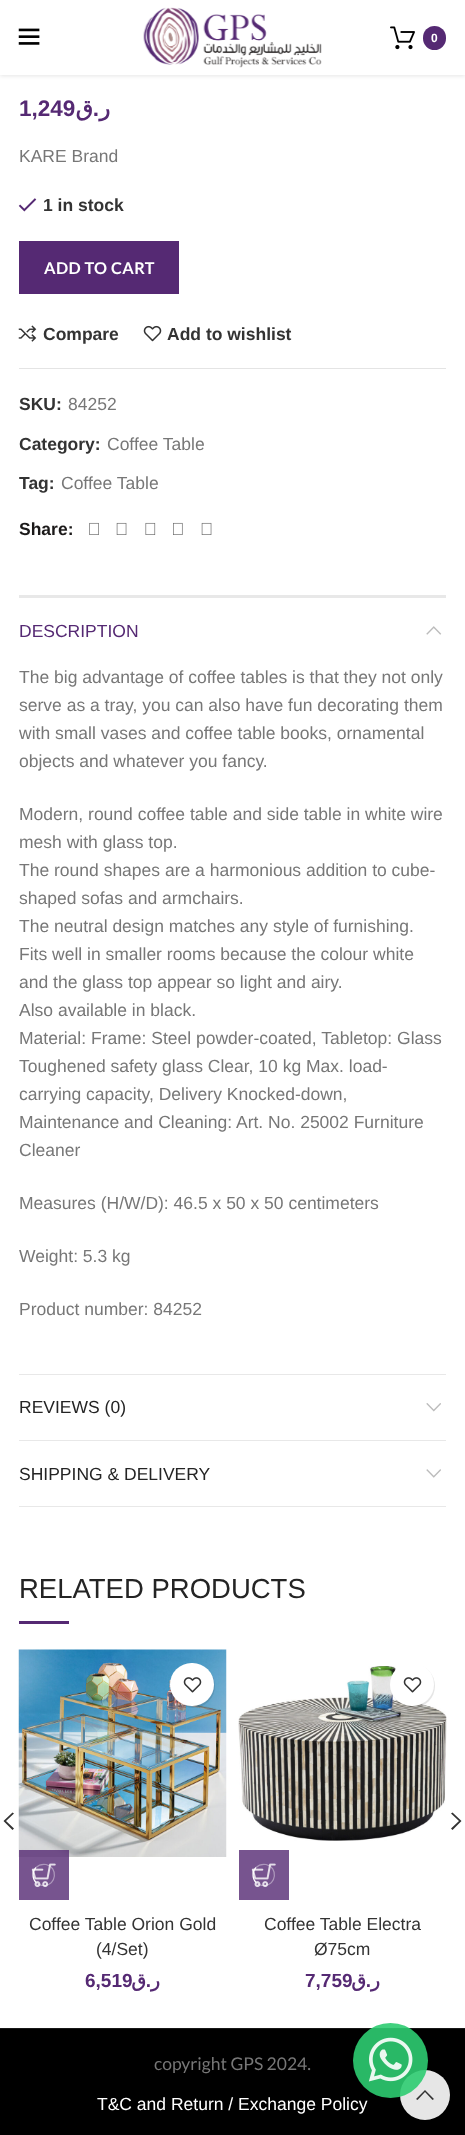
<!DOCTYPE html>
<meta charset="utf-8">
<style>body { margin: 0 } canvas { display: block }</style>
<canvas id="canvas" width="465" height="2135"></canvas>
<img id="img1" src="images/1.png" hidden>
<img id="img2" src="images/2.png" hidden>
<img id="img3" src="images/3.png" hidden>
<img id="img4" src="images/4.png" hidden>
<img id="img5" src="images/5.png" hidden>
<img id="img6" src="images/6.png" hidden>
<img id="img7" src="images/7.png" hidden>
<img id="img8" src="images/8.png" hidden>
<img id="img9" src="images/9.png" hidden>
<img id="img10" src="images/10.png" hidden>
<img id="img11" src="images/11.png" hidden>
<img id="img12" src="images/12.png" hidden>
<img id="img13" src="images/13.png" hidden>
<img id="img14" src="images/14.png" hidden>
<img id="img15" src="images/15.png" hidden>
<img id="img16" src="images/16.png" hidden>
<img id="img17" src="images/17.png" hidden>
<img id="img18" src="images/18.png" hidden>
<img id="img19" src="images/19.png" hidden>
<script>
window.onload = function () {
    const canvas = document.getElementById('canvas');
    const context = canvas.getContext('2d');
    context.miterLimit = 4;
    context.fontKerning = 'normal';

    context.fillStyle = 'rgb(255, 255, 255)';
    context.fillRect(0, 0, 465, 2135);
    context.fillStyle = 'rgba(0, 0, 0, 0.1)';
    context.filter = 'blur(2px)';
    context.beginPath();
    context.rect(0, 1, 465, 75);
    context.fill();
    context.filter = 'none';
    context.fillStyle = 'rgb(255, 255, 255)';
    context.fillRect(0, 0, 465, 75);
    context.drawImage(document.getElementById('img1'), 18, 28, 22, 17);
    context.drawImage(document.getElementById('img2'), 143, 7, 179, 61);
    context.drawImage(document.getElementById('img3'), 390, 26, 25, 24);
    context.fillStyle = 'rgb(85, 41, 115)';
    context.beginPath();
    context.roundRect(423, 26, 23, 24, 11.5);
    context.fill();
    context.drawImage(document.getElementById('img4'), 18, 198, 19, 14);
    context.fillRect(19, 241, 160, 53);
    context.drawImage(document.getElementById('img5'), 18, 325, 19, 17);
    context.drawImage(document.getElementById('img6'), 143, 325, 19, 17);
    context.fillStyle = 'rgb(228, 228, 228)';
    context.fillRect(19, 368, 427, 1);
    context.drawImage(document.getElementById('img7'), 89, 522, 10, 13);
    context.drawImage(document.getElementById('img8'), 116, 522, 11, 13);
    context.drawImage(document.getElementById('img9'), 145, 522, 11, 13);
    context.drawImage(document.getElementById('img10'), 173, 522, 10, 13);
    context.drawImage(document.getElementById('img8'), 201, 522, 11, 13);
    context.fillStyle = 'rgb(232, 232, 232)';
    context.fillRect(19, 595, 427, 3);
    context.fillRect(19, 1374, 427, 1);
    context.drawImage(document.getElementById('img11'), 426, 626, 16, 9);
    context.fillRect(19, 1440, 427, 1);
    context.drawImage(document.getElementById('img12'), 426, 1403, 15, 9);
    context.fillRect(19, 1506, 427, 1);
    context.drawImage(document.getElementById('img13'), 426, 1469, 15, 9);
    context.fillStyle = 'rgb(85, 41, 115)';
    context.fillRect(19, 1621, 50, 3);
    context.fillStyle = 'rgb(51, 51, 51)';
    context.beginPath();
    context.moveTo(14, 1813.5);
    context.lineTo(6, 1821);
    context.lineTo(14, 1828.5);
    context.lineTo(12.5, 1830);
    context.lineTo(3.5, 1821);
    context.lineTo(12.5, 1812.5);
    context.closePath();
    context.fill();
    context.beginPath();
    context.moveTo(452.5, 1812.5);
    context.lineTo(461.5, 1821);
    context.lineTo(452.5, 1830);
    context.lineTo(451, 1828.5);
    context.lineTo(459, 1821);
    context.lineTo(451, 1813.5);
    context.closePath();
    context.fill();
    context.drawImage(document.getElementById('img14'), 18, 1649, 209, 208);
    context.fillStyle = 'rgba(0, 0, 0, 0.1)';
    context.filter = 'blur(0.5px)';
    context.beginPath();
    context.roundRect(171, 1664, 44, 44, 22);
    context.fill();
    context.filter = 'none';
    context.fillStyle = 'rgb(255, 255, 255)';
    context.beginPath();
    context.roundRect(170, 1663, 44, 43, 21.5);
    context.fill();
    context.drawImage(document.getElementById('img15'), 183, 1677, 19, 16);
    context.fillStyle = 'rgba(85, 41, 115, 0.8)';
    context.fillRect(19, 1850, 50, 50);
    context.drawImage(document.getElementById('img16'), 31, 1863, 25, 25);
    context.beginPath();
    context.moveTo(36, 1867.5);
    context.bezierCurveTo(38.5, 1865, 42.5, 1864, 46, 1864.5);
    context.bezierCurveTo(58.5, 1867, 56.5, 1885.5, 44, 1885.5);
    context.bezierCurveTo(41, 1885.5, 38, 1884.5, 36, 1882.5);
    context.strokeStyle = 'rgba(255, 255, 255, 0.4)';
    context.lineWidth = 1.2;
    context.stroke();
    context.beginPath();
    context.moveTo(36, 1882.5);
    context.bezierCurveTo(32, 1878.5, 32, 1871.5, 36, 1867.5);
    context.strokeStyle = 'rgb(255, 255, 255)';
    context.stroke();
    context.drawImage(document.getElementById('img17'), 238, 1666, 209, 175);
    context.fillStyle = 'rgba(0, 0, 0, 0.1)';
    context.filter = 'blur(0.5px)';
    context.beginPath();
    context.roundRect(391, 1664, 44, 44, 22);
    context.fill();
    context.filter = 'none';
    context.fillStyle = 'rgb(255, 255, 255)';
    context.beginPath();
    context.roundRect(390, 1663, 44, 43, 21.5);
    context.fill();
    context.drawImage(document.getElementById('img15'), 403, 1677, 19, 16);
    context.fillStyle = 'rgb(119, 84, 143)';
    context.fillRect(239, 1850, 50, 50);
    context.drawImage(document.getElementById('img18'), 251, 1863, 25, 25);
    context.beginPath();
    context.moveTo(256, 1867.5);
    context.bezierCurveTo(258.5, 1865, 262.5, 1864, 266, 1864.5);
    context.bezierCurveTo(278.5, 1867, 276.5, 1885.5, 264, 1885.5);
    context.bezierCurveTo(261, 1885.5, 258, 1884.5, 256, 1882.5);
    context.strokeStyle = 'rgba(255, 255, 255, 0.4)';
    context.stroke();
    context.beginPath();
    context.moveTo(256, 1882.5);
    context.bezierCurveTo(252, 1878.5, 252, 1871.5, 256, 1867.5);
    context.strokeStyle = 'rgb(255, 255, 255)';
    context.stroke();
    context.fillStyle = 'rgb(0, 0, 0)';
    context.fillRect(0, 2029, 465, 106);
    context.fillStyle = 'rgb(24, 24, 24)';
    context.fillRect(0, 2028, 465, 1);
    context.fillStyle = 'rgb(230, 230, 230)';
    context.beginPath();
    context.arc(425, 2095, 25, 0, 2 * Math.PI);
    context.fill();
    context.fillStyle = 'rgb(51, 51, 51)';
    context.beginPath();
    context.moveTo(425, 2090);
    context.lineTo(434, 2099);
    context.lineTo(432.5, 2100);
    context.lineTo(425, 2092);
    context.lineTo(417.5, 2100);
    context.lineTo(416, 2099);
    context.closePath();
    context.fill();
    context.font = 'bold 12px Liberation Sans';
    context.fillStyle = 'rgb(255, 255, 255)';
    context.fillText('0', 431, 42);
    context.font = 'bold 22.5px Liberation Sans';
    context.fillStyle = 'rgb(85, 41, 115)';
    context.fillText('1,249', 19, 116);
    context.direction = 'rtl';
    context.font = 'bold 22.5px DejaVu Sans';
    context.fillText('ق', 93, 116);
    context.font = 'bold 22.5px Liberation Sans';
    context.fillText('.', 99, 116);
    context.font = 'bold 22.5px DejaVu Sans';
    context.fillText('ر', 110, 116);
    context.direction = 'ltr';
    context.font = '17.5px Liberation Sans';
    context.fillStyle = 'rgb(119, 119, 119)';
    context.fillText('KARE Brand', 19, 162);
    context.font = 'bold 17.5px Liberation Sans';
    context.fillStyle = 'rgb(51, 51, 51)';
    context.fillText('1 in stock', 43, 211);
    context.letterSpacing = '0.4px';
    context.font = 'bold 16.25px Lato';
    context.fillStyle = 'rgb(255, 255, 255)';
    context.fillText('ADD TO CART', 44, 274);
    context.letterSpacing = '0px';
    context.font = 'bold 17.5px Liberation Sans';
    context.fillStyle = 'rgb(51, 51, 51)';
    context.fillText('Compare', 43, 340);
    context.fillText('Add to wishlist', 167, 340);
    context.fillText('SKU:', 19, 410);
    context.font = '17.5px Liberation Sans';
    context.fillStyle = 'rgb(119, 119, 119)';
    context.fillText('84252', 68, 410);
    context.font = 'bold 17.5px Liberation Sans';
    context.fillStyle = 'rgb(51, 51, 51)';
    context.fillText('Category:', 19, 450);
    context.font = '17.5px Liberation Sans';
    context.fillStyle = 'rgb(119, 119, 119)';
    context.fillText('Coffee Table', 107, 450);
    context.font = 'bold 17.5px Liberation Sans';
    context.fillStyle = 'rgb(51, 51, 51)';
    context.fillText('Tag:', 19, 489);
    context.font = '17.5px Liberation Sans';
    context.fillStyle = 'rgb(119, 119, 119)';
    context.fillText('Coffee Table', 61, 489);
    context.font = 'bold 17.5px Liberation Sans';
    context.fillStyle = 'rgb(27, 25, 25)';
    context.fillText('Share:', 19, 535);
    context.font = '17.5px Liberation Sans';
    context.fillStyle = 'rgb(85, 41, 115)';
    context.fillText('DESCRIPTION', 19, 637);
    context.fillStyle = 'rgb(119, 119, 119)';
    context.fillText('The big advantage of coffee tables is that they not only', 19, 683);
    context.fillText('serve as a tray, you can also have fun decorating them', 19, 711);
    context.fillText('with small vases and coffee table books, ornamental', 19, 739);
    context.fillText('objects and whatever you fancy.', 19, 767);
    context.fillText('Modern, round coffee table and side table in white wire', 19, 820);
    context.fillText('mesh with glass top.', 19, 848);
    context.fillText('The round shapes are a harmonious addition to cube-', 19, 876);
    context.fillText('shaped sofas and armchairs.', 19, 904);
    context.fillText('The neutral design matches any style of furnishing.', 19, 932);
    context.fillText('Fits well in smaller rooms because the colour white', 19, 960);
    context.fillText('and the glass top appear so light and airy.', 19, 988);
    context.fillText('Also available in black.', 19, 1016);
    context.fillText('Material: Frame: Steel powder-coated, Tabletop: Glass', 19, 1044);
    context.fillText('Toughened safety glass Clear, 10 kg Max. load-', 19, 1072);
    context.fillText('carrying capacity, Delivery Knocked-down,', 19, 1100);
    context.fillText('Maintenance and Cleaning: Art. No. 25002 Furniture', 19, 1128);
    context.fillText('Cleaner', 19, 1156);
    context.fillText('Measures (H/W/D): 46.5 x 50 x 50 centimeters', 19, 1209);
    context.fillText('Weight: 5.3 kg', 19, 1262);
    context.fillText('Product number: 84252', 19, 1315);
    context.fillStyle = 'rgb(36, 36, 36)';
    context.fillText('REVIEWS (0)', 19, 1413);
    context.fillText('SHIPPING & DELIVERY', 19, 1480);
    context.font = '27.5px Liberation Sans';
    context.fillText('RELATED PRODUCTS', 19, 1598);
    context.font = '17.5px Liberation Sans';
    context.fillStyle = 'rgb(51, 51, 51)';
    context.fillText('Coffee Table Orion Gold', 29, 1930);
    context.fillText('(4/Set)', 96, 1955);
    context.font = 'bold 19px Liberation Sans';
    context.fillStyle = 'rgb(85, 41, 115)';
    context.fillText('6,519', 85, 1987);
    context.direction = 'rtl';
    context.font = 'bold 19px DejaVu Sans';
    context.fillText('ق', 146, 1987);
    context.font = 'bold 19px Liberation Sans';
    context.fillText('.', 151, 1987);
    context.font = 'bold 19px DejaVu Sans';
    context.fillText('ر', 160, 1987);
    context.direction = 'ltr';
    context.font = '17.5px Liberation Sans';
    context.fillStyle = 'rgb(51, 51, 51)';
    context.fillText('Coffee Table Electra', 264, 1930);
    context.fillText('Ø75cm', 314, 1955);
    context.font = 'bold 19px Liberation Sans';
    context.fillStyle = 'rgb(85, 41, 115)';
    context.fillText('7,759', 305, 1987);
    context.direction = 'rtl';
    context.font = 'bold 19px DejaVu Sans';
    context.fillText('ق', 366, 1987);
    context.font = 'bold 19px Liberation Sans';
    context.fillText('.', 371, 1987);
    context.font = 'bold 19px DejaVu Sans';
    context.fillText('ر', 380, 1987);
    context.direction = 'ltr';
    context.font = '17.5px Lato';
    context.fillStyle = 'rgb(119, 119, 119)';
    context.fillText('copyright GPS 2024.', 154, 2070);
    context.font = '17.5px Liberation Sans';
    context.fillStyle = 'rgb(255, 255, 255)';
    context.fillText('T&C and Return / Exchange Policy', 97, 2110);
    context.fillStyle = 'rgba(46, 204, 113, 0.9)';
    context.beginPath();
    context.arc(390.5, 2060.5, 37.5, 0, 2 * Math.PI);
    context.fill();
    context.drawImage(document.getElementById('img19'), 368, 2037, 45, 45);
};
</script>
